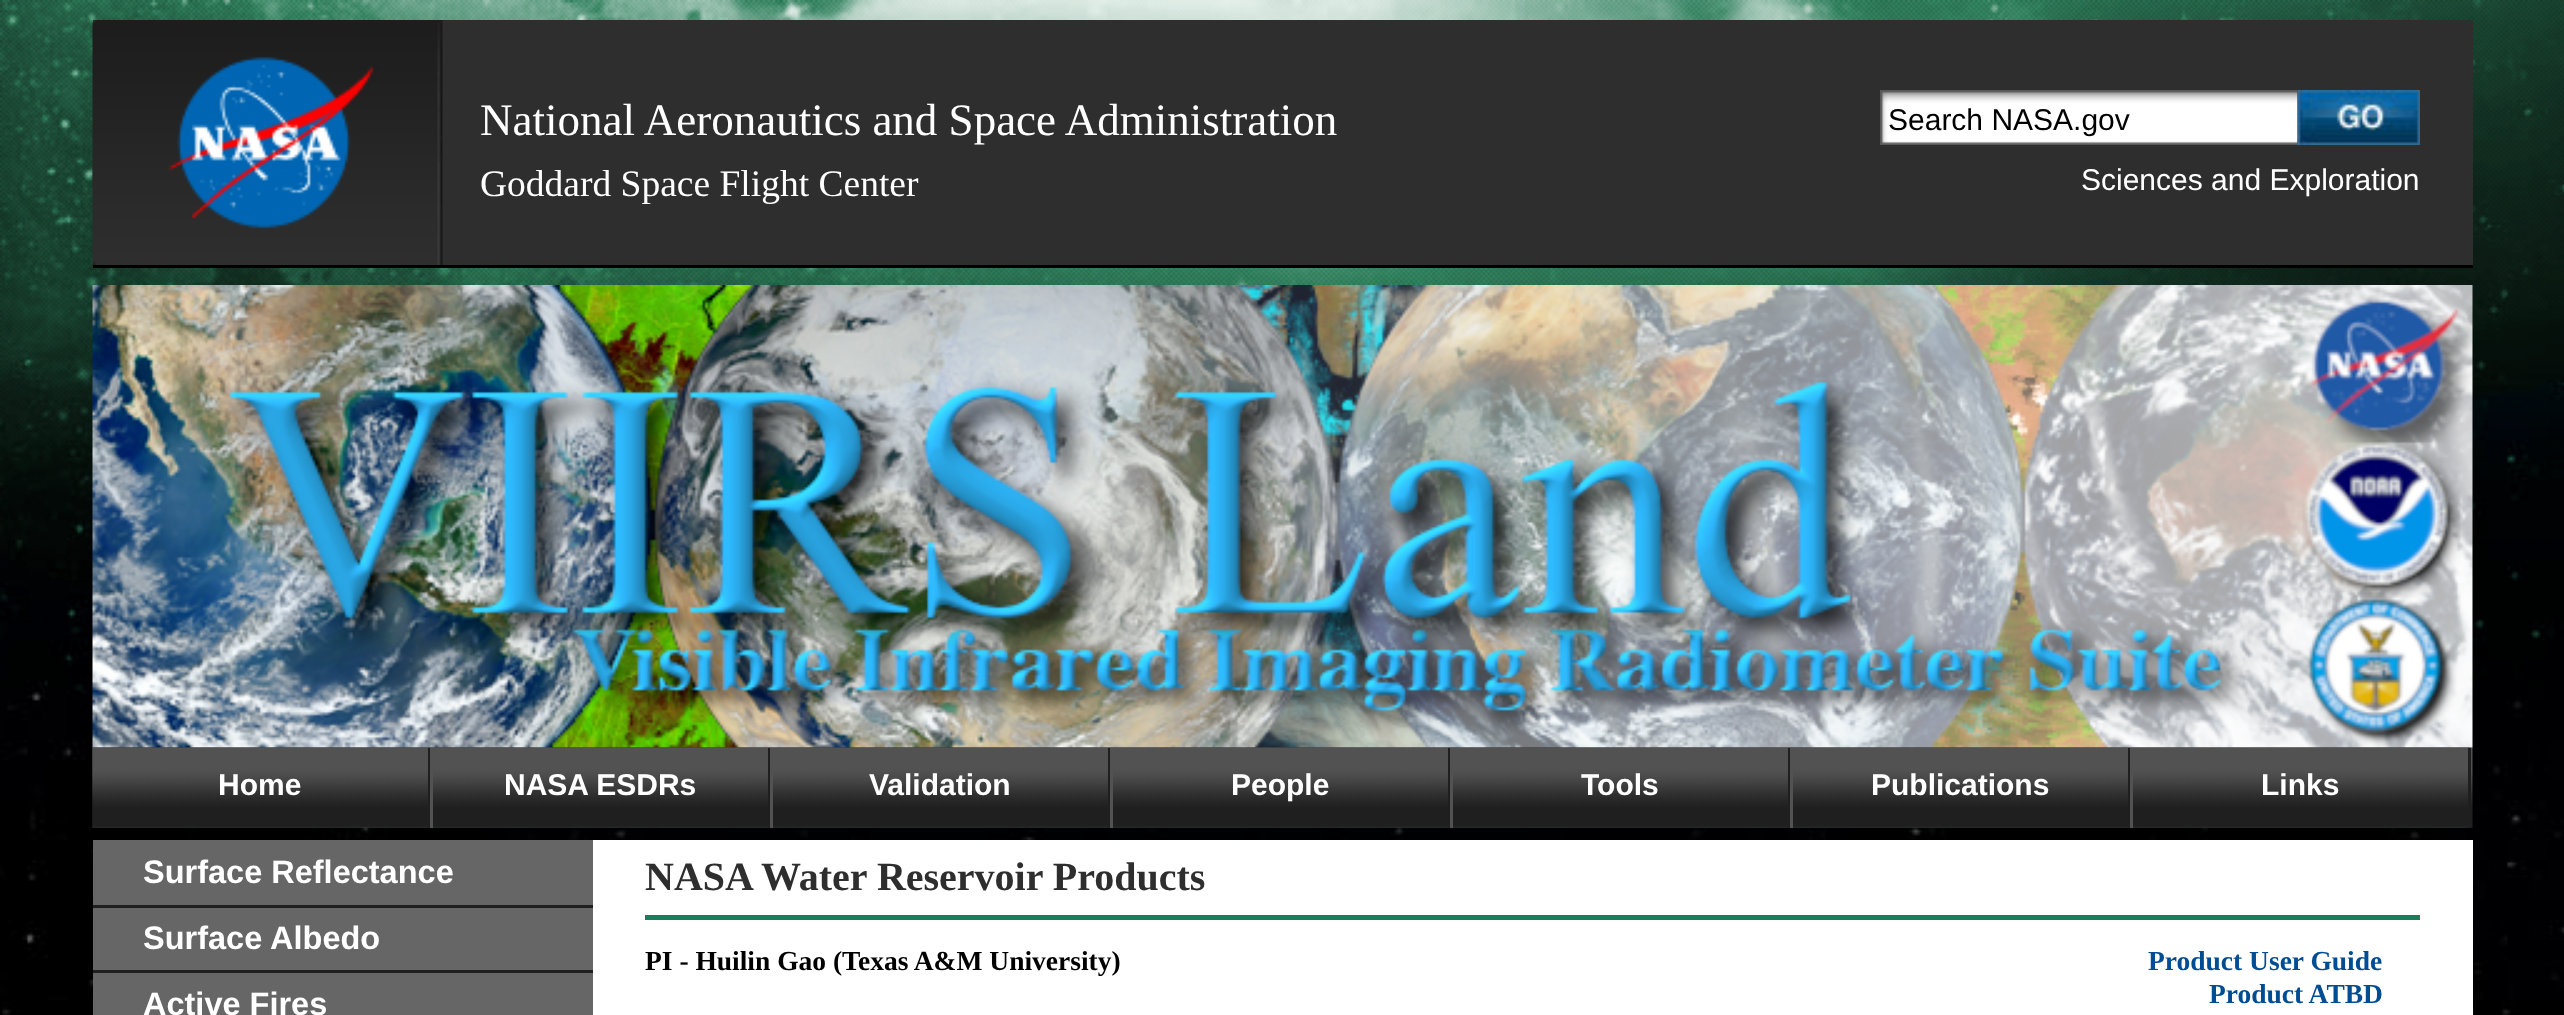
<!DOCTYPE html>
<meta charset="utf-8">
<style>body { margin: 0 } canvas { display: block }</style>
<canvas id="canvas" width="2564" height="1015"></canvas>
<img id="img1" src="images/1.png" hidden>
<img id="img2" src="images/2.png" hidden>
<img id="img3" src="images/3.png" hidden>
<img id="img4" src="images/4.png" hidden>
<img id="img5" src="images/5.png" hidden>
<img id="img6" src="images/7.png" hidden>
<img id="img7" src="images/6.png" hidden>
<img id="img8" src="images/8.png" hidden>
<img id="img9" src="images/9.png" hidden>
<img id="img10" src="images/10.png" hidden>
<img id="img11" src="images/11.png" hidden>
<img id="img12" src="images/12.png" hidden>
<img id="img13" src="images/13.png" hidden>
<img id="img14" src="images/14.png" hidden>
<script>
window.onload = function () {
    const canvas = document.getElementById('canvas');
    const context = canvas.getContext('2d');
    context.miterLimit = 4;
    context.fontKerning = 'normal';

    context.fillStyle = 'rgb(255, 255, 255)';
    context.fillRect(0, 0, 2564, 1015);
    context.drawImage(document.getElementById('img1'), 0, 1000, 2564, 15);
    context.drawImage(document.getElementById('img2'), 0, 0, 2564, 1000);
    context.fillStyle = 'rgb(46, 46, 46)';
    context.fillRect(93, 20, 2380, 245);
    context.fillStyle = 'rgb(0, 0, 0)';
    context.fillRect(93, 265, 2380, 3);
    context.drawImage(document.getElementById('img3'), 92, 20, 351, 245);
    context.drawImage(document.getElementById('img4'), 1880, 90, 418, 55);
    context.drawImage(document.getElementById('img5'), 2297, 90, 123, 55);
    context.drawImage(document.getElementById('img6'), 92, 747, 2381, 81);
    context.drawImage(document.getElementById('img7'), 92, 285, 2381, 463);
    context.drawImage(document.getElementById('img8'), 92, 747, 338, 81);
    context.fillStyle = 'rgb(31, 31, 31)';
    context.fillRect(428, 748, 2, 80);
    context.drawImage(document.getElementById('img9'), 430, 747, 340, 81);
    context.fillRect(768, 748, 2, 80);
    context.fillStyle = 'rgb(82, 82, 82)';
    context.fillRect(430, 772, 3, 56);
    context.drawImage(document.getElementById('img10'), 770, 747, 340, 81);
    context.fillStyle = 'rgb(31, 31, 31)';
    context.fillRect(1108, 748, 2, 80);
    context.fillStyle = 'rgb(82, 82, 82)';
    context.fillRect(770, 772, 3, 56);
    context.drawImage(document.getElementById('img11'), 1110, 747, 340, 81);
    context.fillStyle = 'rgb(31, 31, 31)';
    context.fillRect(1448, 748, 2, 80);
    context.fillStyle = 'rgb(82, 82, 82)';
    context.fillRect(1110, 772, 3, 56);
    context.drawImage(document.getElementById('img12'), 1450, 747, 340, 81);
    context.fillStyle = 'rgb(31, 31, 31)';
    context.fillRect(1788, 748, 2, 80);
    context.fillStyle = 'rgb(82, 82, 82)';
    context.fillRect(1450, 772, 3, 56);
    context.drawImage(document.getElementById('img13'), 1790, 747, 340, 81);
    context.fillStyle = 'rgb(31, 31, 31)';
    context.fillRect(2128, 748, 2, 80);
    context.fillStyle = 'rgb(82, 82, 82)';
    context.fillRect(1790, 772, 3, 56);
    context.drawImage(document.getElementById('img14'), 2130, 747, 340, 81);
    context.fillStyle = 'rgb(31, 31, 31)';
    context.fillRect(2468, 748, 3, 80);
    context.fillStyle = 'rgb(82, 82, 82)';
    context.fillRect(2130, 772, 3, 56);
    context.fillStyle = 'rgb(255, 255, 255)';
    context.fillRect(593, 840, 1880, 175);
    context.fillStyle = 'rgb(102, 102, 102)';
    context.fillRect(93, 840, 500, 175);
    context.fillStyle = 'rgb(31, 31, 31)';
    context.fillRect(93, 905, 500, 3);
    context.fillRect(93, 970, 500, 3);
    context.fillStyle = 'rgb(28, 125, 91)';
    context.fillRect(645, 915, 1775, 5);
    context.font = '45px Liberation Serif';
    context.fillStyle = 'rgb(255, 255, 255)';
    context.fillText('National Aeronautics and Space Administration', 480, 135);
    context.font = '37.5px Liberation Serif';
    context.fillText('Goddard Space Flight Center', 480, 196);
    context.font = '30px Liberation Sans';
    context.fillStyle = 'rgb(0, 0, 0)';
    context.fillText('Search NASA.gov', 1888, 130);
    context.fillStyle = 'rgb(255, 255, 255)';
    context.fillText('Sciences and Exploration', 2081, 190);
    context.font = 'bold 30px Liberation Sans';
    context.fillText('Home', 218, 795);
    context.fillText('NASA ESDRs', 504, 795);
    context.fillText('Validation', 869, 795);
    context.fillText('People', 1231, 795);
    context.fillText('Tools', 1581, 795);
    context.fillText('Publications', 1871, 795);
    context.fillText('Links', 2261, 795);
    context.font = 'bold 32.5px Liberation Sans';
    context.fillText('Surface Reflectance', 143, 883);
    context.fillText('Surface Albedo', 143, 949);
    context.fillText('Active Fires', 143, 1015);
    context.font = 'bold 40px Liberation Serif';
    context.fillStyle = 'rgb(46, 46, 46)';
    context.fillText('NASA Water Reservoir Products', 645, 890);
    context.font = 'bold 27.5px Liberation Serif';
    context.fillStyle = 'rgb(0, 0, 0)';
    context.fillText('PI - Huilin Gao (Texas A&M University)', 645, 970);
    context.fillStyle = 'rgb(0, 77, 147)';
    context.fillText('Product User Guide', 2148, 970);
    context.fillText('Product ATBD', 2209, 1003);
};
</script>
